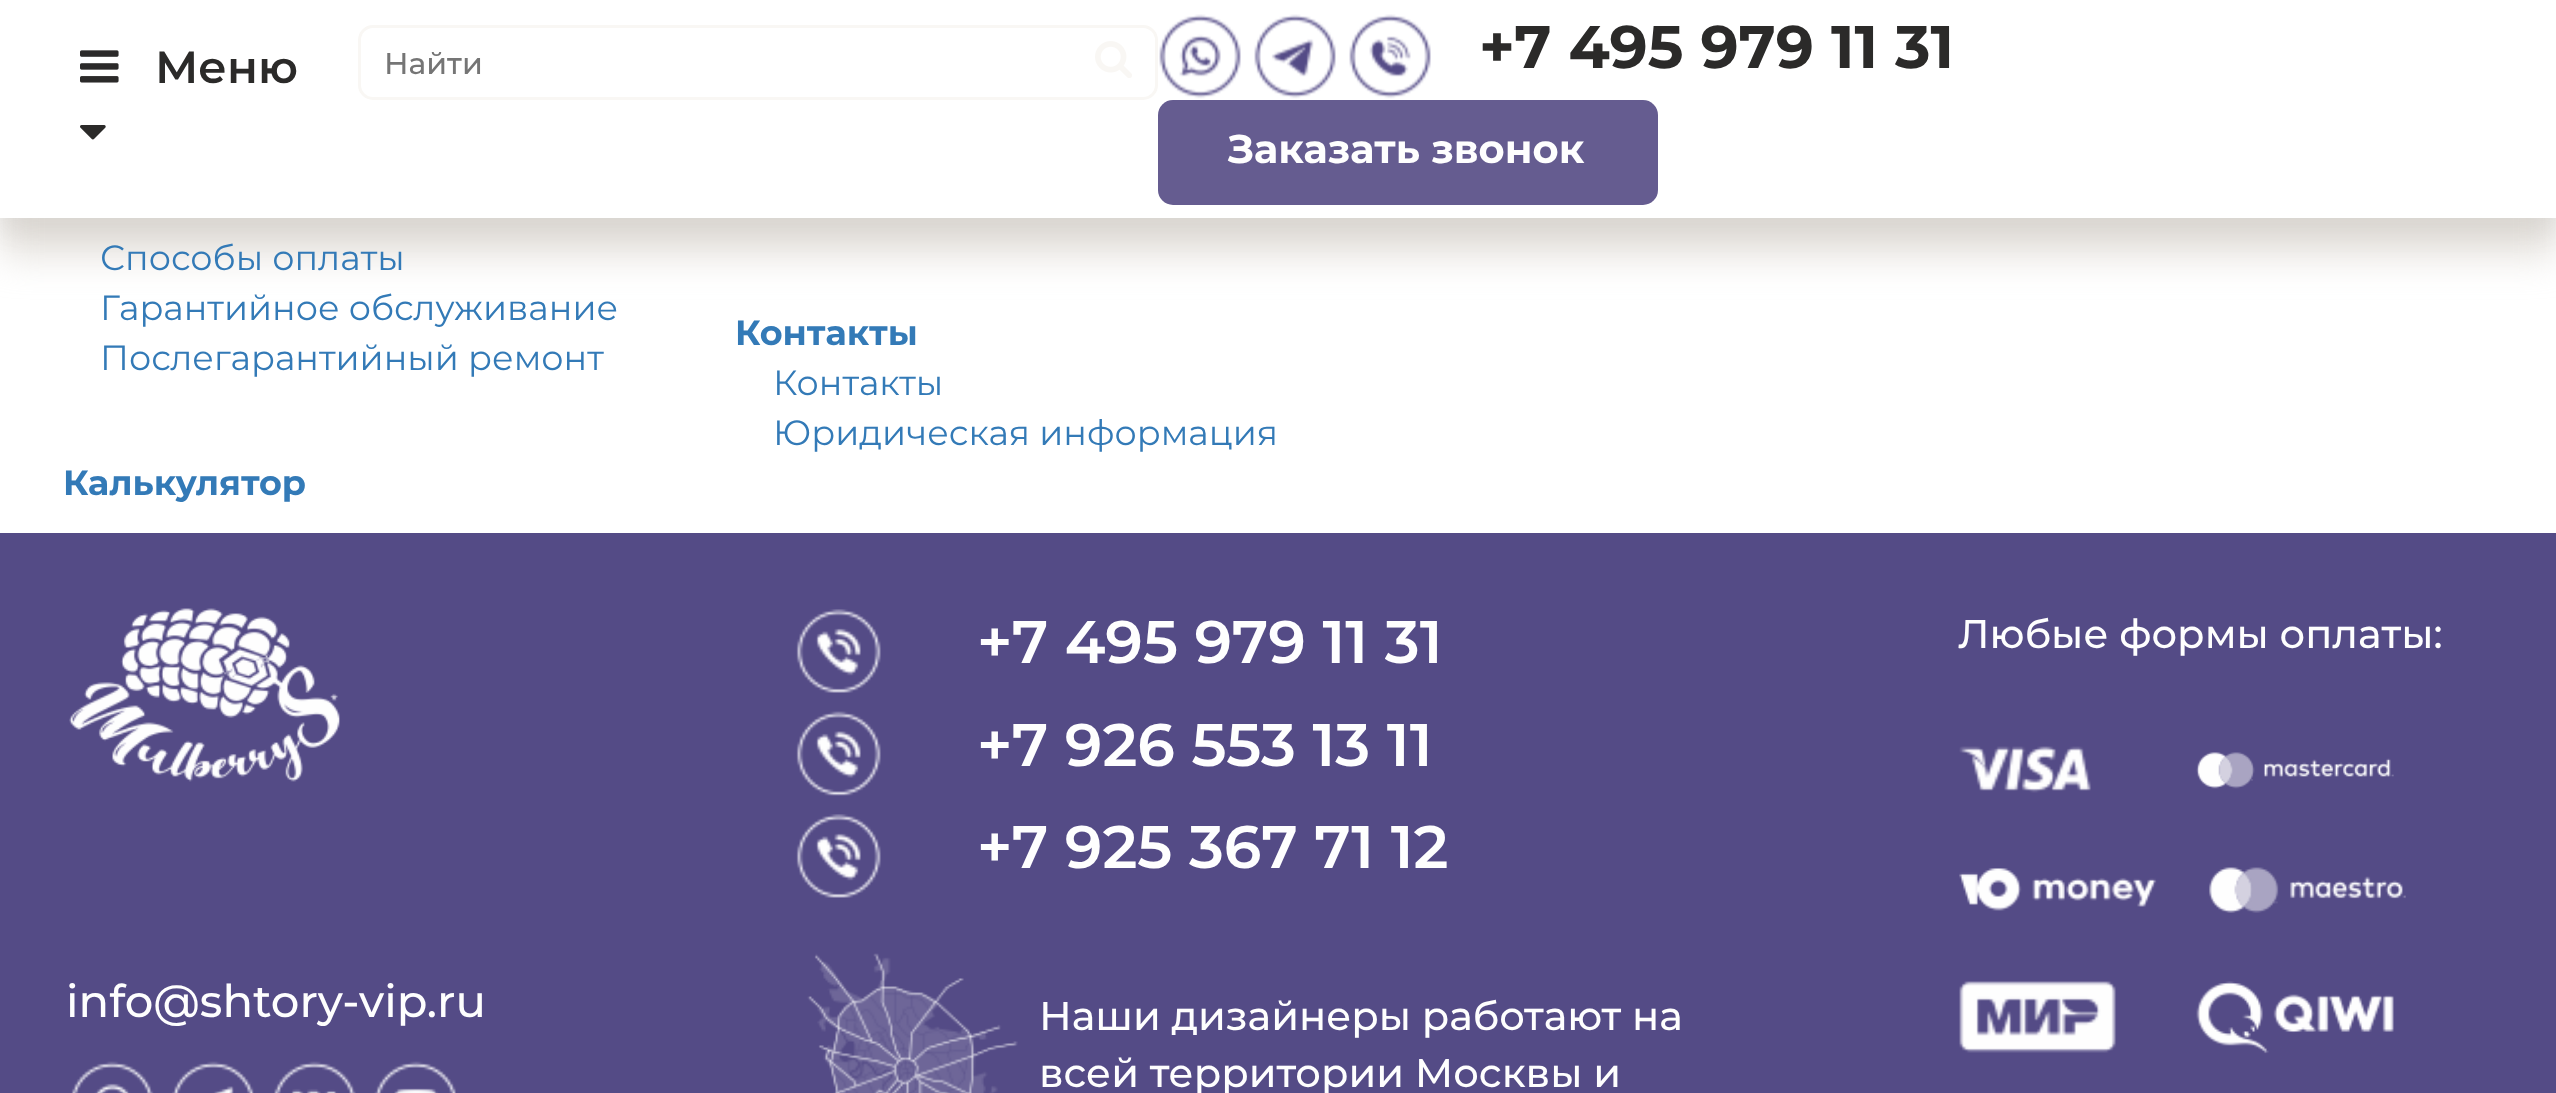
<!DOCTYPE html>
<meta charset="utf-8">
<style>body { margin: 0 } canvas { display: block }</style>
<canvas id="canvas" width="2556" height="1093"></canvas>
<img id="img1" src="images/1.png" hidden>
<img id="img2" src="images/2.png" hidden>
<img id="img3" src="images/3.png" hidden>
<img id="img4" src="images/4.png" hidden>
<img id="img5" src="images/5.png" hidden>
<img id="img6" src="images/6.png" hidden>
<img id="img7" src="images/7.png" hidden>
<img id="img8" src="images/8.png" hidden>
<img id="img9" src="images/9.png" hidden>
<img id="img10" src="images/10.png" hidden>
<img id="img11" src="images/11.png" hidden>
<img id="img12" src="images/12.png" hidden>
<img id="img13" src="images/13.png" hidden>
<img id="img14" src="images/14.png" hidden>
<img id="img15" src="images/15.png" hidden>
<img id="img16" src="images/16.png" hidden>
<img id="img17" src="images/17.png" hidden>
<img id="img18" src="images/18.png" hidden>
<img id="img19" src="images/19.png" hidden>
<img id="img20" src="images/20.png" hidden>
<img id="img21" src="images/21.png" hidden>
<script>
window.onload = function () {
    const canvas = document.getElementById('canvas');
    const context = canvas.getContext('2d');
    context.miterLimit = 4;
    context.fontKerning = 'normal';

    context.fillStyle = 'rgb(255, 255, 255)';
    context.fillRect(0, 0, 2556, 1093);
    context.fillStyle = 'rgba(0, 0, 0, 0.1)';
    context.filter = 'blur(12.5px)';
    context.beginPath();
    context.rect(0, 13, 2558, 217);
    context.fill();
    context.filter = 'none';
    context.fillStyle = 'rgb(255, 255, 255)';
    context.fillRect(0, 0, 2556, 218);
    context.save();
    context.beginPath();
    context.moveTo(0, 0);
    context.lineTo(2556, 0);
    context.lineTo(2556, 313);
    context.lineTo(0, 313);
    context.closePath();
    context.moveTo(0, 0);
    context.lineTo(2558, 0);
    context.lineTo(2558, 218);
    context.lineTo(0, 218);
    context.closePath();
    context.clip('evenodd');
    context.fillStyle = 'rgba(209, 202, 193, 0.6)';
    context.filter = 'blur(19px)';
    context.beginPath();
    context.rect(0, 38, 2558, 217);
    context.fill();
    context.filter = 'none';
    context.restore();
    context.drawImage(document.getElementById('img1'), 80, 50, 39, 33);
    context.drawImage(document.getElementById('img2'), 80, 125, 26, 15);
    context.beginPath();
    context.roundRect(359.5, 26.5, 797, 72, 13.5);
    context.strokeStyle = 'rgb(249, 247, 244)';
    context.lineWidth = 3;
    context.stroke();
    context.drawImage(document.getElementById('img3'), 1095, 41, 37, 37);
    context.drawImage(document.getElementById('img4'), 1159, 14, 82, 85);
    context.drawImage(document.getElementById('img5'), 1254, 14, 82, 85);
    context.drawImage(document.getElementById('img6'), 1349, 14, 82, 85);
    context.fillStyle = 'rgb(101, 92, 144)';
    context.beginPath();
    context.roundRect(1158, 100, 500, 105, 15);
    context.fill();
    context.fillStyle = 'rgb(84, 75, 134)';
    context.fillRect(0, 533, 2556, 560);
    context.drawImage(document.getElementById('img7'), 69, 608, 271, 174);
    context.drawImage(document.getElementById('img8'), 71, 1061, 83, 32);
    context.drawImage(document.getElementById('img9'), 172, 1061, 82, 32);
    context.drawImage(document.getElementById('img10'), 274, 1061, 82, 32);
    context.drawImage(document.getElementById('img11'), 374, 1061, 82, 32);
    context.drawImage(document.getElementById('img12'), 796, 609, 85, 84);
    context.drawImage(document.getElementById('img13'), 796, 711, 85, 85);
    context.drawImage(document.getElementById('img14'), 796, 814, 85, 84);
    context.drawImage(document.getElementById('img15'), 807, 953, 211, 140);
    context.drawImage(document.getElementById('img16'), 1959, 746, 132, 47);
    context.drawImage(document.getElementById('img17'), 2196, 752, 198, 37);
    context.drawImage(document.getElementById('img18'), 1959, 868, 198, 43);
    context.drawImage(document.getElementById('img19'), 2209, 867, 197, 46);
    context.drawImage(document.getElementById('img20'), 1959, 981, 157, 72);
    context.drawImage(document.getElementById('img21'), 2196, 981, 198, 73);
    context.font = '600 45px Montserrat';
    context.fillStyle = 'rgb(43, 42, 41)';
    context.fillText('Меню', 155, 83);
    context.font = '500 30px Montserrat';
    context.fillStyle = 'rgb(117, 117, 117)';
    context.fillText('Найти', 384, 74);
    context.font = 'bold 60px Montserrat';
    context.fillStyle = 'rgb(43, 42, 41)';
    context.fillText('+7 495 979 11 31', 1479, 68);
    context.font = 'bold 40px Montserrat';
    context.fillStyle = 'rgb(254, 254, 254)';
    context.fillText('Заказать звонок', 1228, 163);
    context.font = '35px Montserrat';
    context.fillStyle = 'rgb(51, 122, 183)';
    context.fillText('Способы оплаты', 100, 270);
    context.fillText('Гарантийное обслуживание', 100, 320);
    context.fillText('Послегарантийный ремонт', 100, 370);
    context.font = 'bold 35px Montserrat';
    context.fillText('Калькулятор', 63, 495);
    context.fillText('Контакты', 735, 345);
    context.font = '35px Montserrat';
    context.fillText('Контакты', 773, 395);
    context.fillText('Юридическая информация', 773, 445);
    context.font = '500 45px Montserrat';
    context.fillStyle = 'rgb(254, 254, 254)';
    context.fillText('info@shtory-vip.ru', 66, 1017);
    context.font = '600 60px Montserrat';
    context.fillText('+7 495 979 11 31', 977, 663);
    context.fillText('+7 926 553 13 11', 977, 766);
    context.fillText('+7 925 367 71 12', 977, 868);
    context.font = '500 40px Montserrat';
    context.fillText('Наши дизайнеры работают на', 1039, 1030);
    context.fillText('всей территории Москвы и', 1039, 1087);
    context.fillText('Любые формы оплаты:', 1958, 648);
};
</script>
